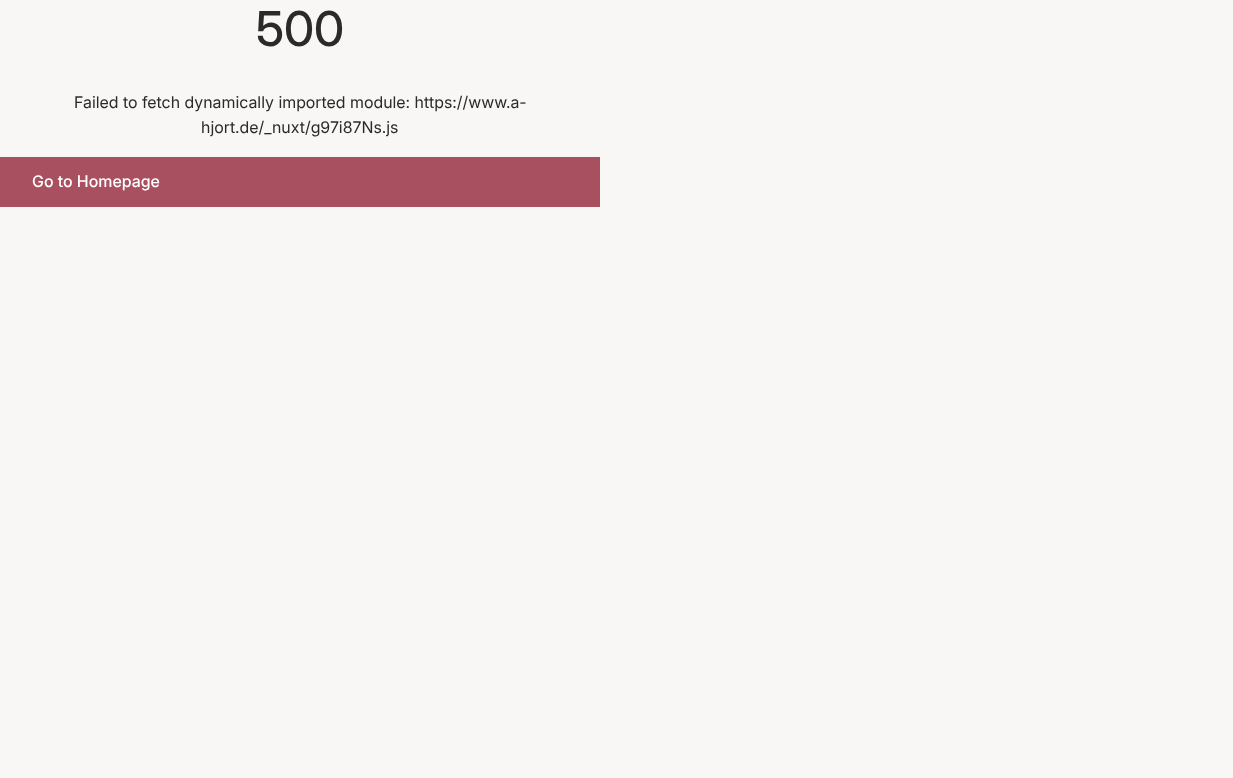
<!DOCTYPE html>
<meta charset="utf-8">
<style>body { margin: 0 } canvas { display: block }</style>
<canvas id="canvas" width="1233" height="778"></canvas>
<script>
window.onload = function () {
    const canvas = document.getElementById('canvas');
    const context = canvas.getContext('2d');
    context.miterLimit = 4;
    context.fontKerning = 'normal';

    context.fillStyle = 'rgb(249, 247, 246)';
    context.fillRect(0, 0, 1233, 778);
    context.fillStyle = 'rgb(168, 80, 95)';
    context.fillRect(0, 157, 600, 50);
    context.font = '500 48px Inter';
    context.fillStyle = 'rgb(43, 42, 42)';
    context.fillText('500', 256, 46);
    context.font = '16px Inter';
    context.fillText('Failed to fetch dynamically imported module: https://www.a-', 74, 108);
    context.fillText('hjort.de/_nuxt/g97i87Ns.js', 201, 133);
    context.font = '500 16px "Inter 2"';
    context.fillStyle = 'rgb(255, 255, 255)';
    context.fillText('Go to Homepage', 32, 187);
};
</script>
